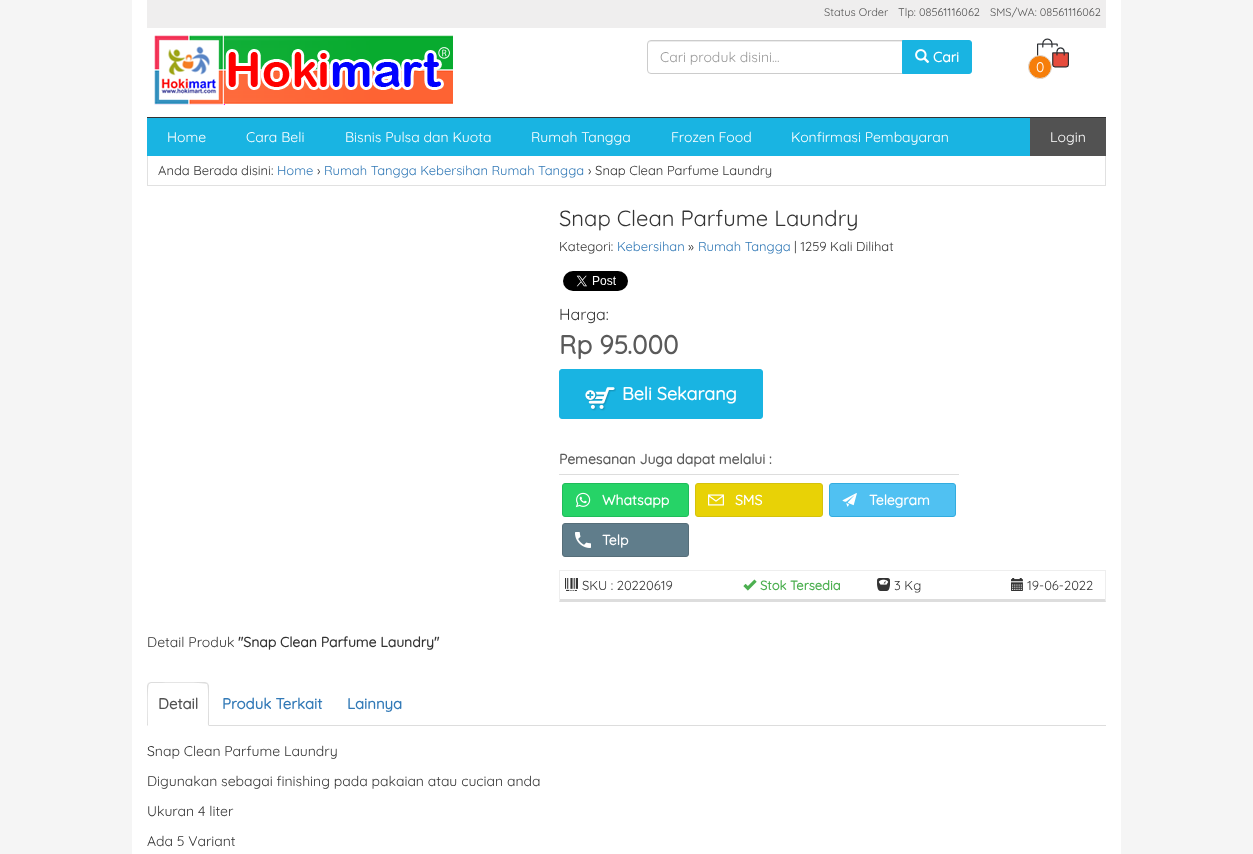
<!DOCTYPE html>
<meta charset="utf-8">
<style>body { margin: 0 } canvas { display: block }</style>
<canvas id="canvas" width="1253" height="854"></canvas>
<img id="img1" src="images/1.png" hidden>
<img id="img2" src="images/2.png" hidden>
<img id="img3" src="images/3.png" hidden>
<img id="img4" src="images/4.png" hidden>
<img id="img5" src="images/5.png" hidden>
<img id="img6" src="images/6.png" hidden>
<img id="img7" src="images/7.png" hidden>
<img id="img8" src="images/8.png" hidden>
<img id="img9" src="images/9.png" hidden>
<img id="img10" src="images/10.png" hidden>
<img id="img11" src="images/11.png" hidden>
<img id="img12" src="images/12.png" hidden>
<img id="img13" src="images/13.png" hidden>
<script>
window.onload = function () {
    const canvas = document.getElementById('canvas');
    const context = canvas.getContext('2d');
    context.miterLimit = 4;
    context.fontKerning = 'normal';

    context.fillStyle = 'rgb(245, 245, 245)';
    context.fillRect(0, 0, 1253, 854);
    context.fillStyle = 'rgb(255, 255, 255)';
    context.fillRect(132, 0, 989, 854);
    context.fillStyle = 'rgb(239, 238, 238)';
    context.fillRect(147, 0, 959, 28);
    context.fillStyle = 'rgb(51, 51, 51)';
    context.fillRect(147, 117, 959, 1);
    context.drawImage(document.getElementById('img1'), 154, 35, 299, 70);
    context.fillStyle = 'rgb(236, 236, 236)';
    context.beginPath();
    context.moveTo(651, 42);
    context.lineTo(902, 42);
    context.lineTo(902, 41);
    context.lineTo(651, 41);
    context.bezierCurveTo(649, 41, 648, 43, 648, 45);
    context.bezierCurveTo(648, 43, 649, 42, 651, 42);
    context.closePath();
    context.fill();
    context.beginPath();
    context.roundRect(647.5, 40.5, 255, 33, [3.5, 0, 0, 3.5]);
    context.strokeStyle = 'rgb(204, 204, 204)';
    context.stroke();
    context.fillStyle = 'rgb(25, 180, 226)';
    context.beginPath();
    context.roundRect(902.5, 40.5, 69, 33, [0, 2.5, 2.5, 0]);
    context.fill();
    context.strokeStyle = 'rgb(25, 180, 226)';
    context.stroke();
    context.drawImage(document.getElementById('img2'), 915, 49, 15, 14);
    context.drawImage(document.getElementById('img3'), 1037, 38, 32, 30);
    context.fillStyle = 'rgb(246, 126, 10)';
    context.beginPath();
    context.arc(1040, 67, 11.5, 0, 2 * Math.PI);
    context.fill();
    context.strokeStyle = 'rgb(221, 221, 221)';
    context.stroke();
    context.strokeStyle = 'rgb(225, 225, 225)';
    context.strokeRect(147.5, 155.5, 958, 30);
    context.fillStyle = 'rgb(25, 180, 226)';
    context.fillRect(147, 118, 883, 38);
    context.fillStyle = 'rgb(82, 82, 82)';
    context.fillRect(1030, 118, 76, 38);
    context.drawImage(document.getElementById('img4'), 563, 271, 65, 20);
    context.fillStyle = 'rgb(25, 180, 226)';
    context.beginPath();
    context.roundRect(559.5, 369.5, 203, 49, 2.5);
    context.fill();
    context.strokeStyle = 'rgb(25, 180, 226)';
    context.stroke();
    context.drawImage(document.getElementById('img5'), 585, 387, 31, 24);
    context.fillStyle = 'rgb(221, 221, 221)';
    context.fillRect(559, 474, 400, 1);
    context.fillStyle = 'rgb(38, 211, 103)';
    context.beginPath();
    context.roundRect(562.5, 483.5, 126, 33, 2.5);
    context.fill();
    context.strokeStyle = 'rgb(31, 188, 90)';
    context.stroke();
    context.drawImage(document.getElementById('img6'), 575, 492, 16, 16);
    context.fillStyle = 'rgb(232, 210, 6)';
    context.beginPath();
    context.roundRect(695.5, 483.5, 127, 33, 2.5);
    context.fill();
    context.strokeStyle = 'rgb(213, 194, 13)';
    context.stroke();
    context.drawImage(document.getElementById('img7'), 708, 494, 16, 12);
    context.fillStyle = 'rgb(80, 193, 242)';
    context.beginPath();
    context.roundRect(829.5, 483.5, 126, 33, 2.5);
    context.fill();
    context.strokeStyle = 'rgb(51, 172, 223)';
    context.stroke();
    context.drawImage(document.getElementById('img8'), 842, 493, 15, 14);
    context.fillStyle = 'rgb(96, 125, 139)';
    context.beginPath();
    context.roundRect(562.5, 523.5, 126, 33, 2.5);
    context.fill();
    context.strokeStyle = 'rgb(86, 110, 121)';
    context.stroke();
    context.drawImage(document.getElementById('img9'), 575, 532, 16, 16);
    context.fillStyle = 'rgb(238, 238, 238)';
    context.fillRect(559, 570, 547, 1);
    context.beginPath();
    context.moveTo(1106, 570);
    context.lineTo(1106, 602);
    context.lineTo(1105, 599);
    context.lineTo(1105, 571);
    context.closePath();
    context.fill();
    context.fillStyle = 'rgb(221, 221, 221)';
    context.beginPath();
    context.moveTo(1106, 602);
    context.lineTo(559, 602);
    context.lineTo(560, 599);
    context.lineTo(1105, 599);
    context.closePath();
    context.fill();
    context.fillStyle = 'rgb(238, 238, 238)';
    context.beginPath();
    context.moveTo(559, 602);
    context.lineTo(559, 570);
    context.lineTo(560, 571);
    context.lineTo(560, 599);
    context.closePath();
    context.fill();
    context.drawImage(document.getElementById('img10'), 565, 578, 13, 13);
    context.drawImage(document.getElementById('img11'), 743, 579, 14, 12);
    context.drawImage(document.getElementById('img12'), 877, 578, 13, 13);
    context.drawImage(document.getElementById('img13'), 1011, 578, 12, 13);
    context.fillStyle = 'rgb(221, 221, 221)';
    context.fillRect(209, 725, 897, 1);
    context.beginPath();
    context.moveTo(151, 682);
    context.lineTo(148, 683);
    context.lineTo(149, 684);
    context.lineTo(151, 683);
    context.bezierCurveTo(156, 683, 205, 682, 207, 684);
    context.lineTo(208, 683);
    context.lineTo(205, 682);
    context.closePath();
    context.fill();
    context.beginPath();
    context.moveTo(209, 726);
    context.lineTo(209, 686);
    context.bezierCurveTo(209, 685, 208, 684, 208, 683);
    context.lineTo(207, 684);
    context.bezierCurveTo(209, 686, 208, 720, 208, 725);
    context.closePath();
    context.moveTo(147, 726);
    context.lineTo(148, 725);
    context.bezierCurveTo(148, 720, 147, 686, 149, 684);
    context.lineTo(148, 683);
    context.lineTo(147, 686);
    context.closePath();
    context.fill();
    context.font = '300 11px Quicksand';
    context.fillStyle = 'rgb(82, 82, 82)';
    context.fillText('Status Order', 824, 16);
    context.fillText('Tlp: 08561116062', 898, 16);
    context.fillText('SMS/WA: 08561116062', 990, 16);
    context.font = '300 14px Quicksand';
    context.fillStyle = 'rgb(153, 153, 153)';
    context.fillText('Cari produk disini...', 660, 62);
    context.font = 'bold 14px Quicksand';
    context.fillStyle = 'rgb(255, 255, 255)';
    context.fillText('Cari', 933, 62);
    context.font = '300 14px Quicksand';
    context.fillText('0', 1036, 72);
    context.fillText('Home', 167, 142);
    context.fillText('Cara Beli', 246, 142);
    context.fillText('Bisnis Pulsa dan Kuota', 345, 142);
    context.fillText('Rumah Tangga', 531, 142);
    context.fillText('Frozen Food', 671, 142);
    context.fillText('Konfirmasi Pembayaran', 791, 142);
    context.fillText('Login', 1050, 142);
    context.font = '300 13px Quicksand';
    context.fillStyle = 'rgb(51, 51, 51)';
    context.fillText('Anda Berada disini:', 158, 175);
    context.fillStyle = 'rgb(51, 122, 183)';
    context.fillText('Home', 277, 175);
    context.fillStyle = 'rgb(51, 51, 51)';
    context.fillText('›', 317, 175);
    context.fillStyle = 'rgb(51, 122, 183)';
    context.fillText('Rumah Tangga Kebersihan Rumah Tangga', 324, 175);
    context.fillStyle = 'rgb(51, 51, 51)';
    context.fillText('› Snap Clean Parfume Laundry', 588, 175);
    context.font = '300 22px Quicksand';
    context.fillText('Snap Clean Parfume Laundry', 559, 226);
    context.font = '300 13px Quicksand';
    context.fillText('Kategori:', 559, 251);
    context.fillStyle = 'rgb(51, 122, 183)';
    context.fillText('Kebersihan', 617, 251);
    context.fillStyle = 'rgb(51, 51, 51)';
    context.fillText('»', 688, 251);
    context.fillStyle = 'rgb(51, 122, 183)';
    context.fillText('Rumah Tangga', 698, 251);
    context.fillStyle = 'rgb(51, 51, 51)';
    context.fillText('| 1259 Kali Dilihat', 794, 251);
    context.font = '300 16px Quicksand';
    context.fillText('Harga:', 559, 320);
    context.font = 'bold 26px Quicksand';
    context.fillStyle = 'rgb(90, 90, 90)';
    context.fillText('Rp 95.000', 559, 354);
    context.font = 'bold 18px Quicksand';
    context.fillStyle = 'rgb(255, 255, 255)';
    context.fillText('Beli Sekarang', 622, 400);
    context.font = 'bold 14px Quicksand';
    context.fillStyle = 'rgb(90, 90, 90)';
    context.fillText('Pemesanan Juga dapat melalui :', 559, 464);
    context.fillStyle = 'rgb(255, 255, 255)';
    context.fillText('Whatsapp', 602, 505);
    context.fillText('SMS', 735, 505);
    context.fillText('Telegram', 869, 505);
    context.fillText('Telp', 602, 545);
    context.font = '300 13px Quicksand';
    context.fillStyle = 'rgb(51, 51, 51)';
    context.fillText('SKU : 20220619', 582, 590);
    context.font = 'bold 13px Quicksand';
    context.fillStyle = 'rgb(76, 175, 80)';
    context.fillText('Stok Tersedia', 760, 590);
    context.font = '300 13px Quicksand';
    context.fillStyle = 'rgb(51, 51, 51)';
    context.fillText('3 Kg', 894, 590);
    context.fillText('19-06-2022', 1027, 590);
    context.font = '300 14px Quicksand';
    context.fillText('Detail Produk', 147, 647);
    context.font = 'bold 14px Quicksand';
    context.fillText('"Snap Clean Parfume Laundry"', 238, 647);
    context.font = 'bold 15px Quicksand';
    context.fillStyle = 'rgb(82, 82, 82)';
    context.fillText('Detail', 158, 709);
    context.fillStyle = 'rgb(51, 122, 183)';
    context.fillText('Produk Terkait', 222, 709);
    context.fillText('Lainnya', 347, 709);
    context.font = '300 14px Quicksand';
    context.fillStyle = 'rgb(51, 51, 51)';
    context.fillText('Snap Clean Parfume Laundry', 147, 756);
    context.fillText('Digunakan sebagai finishing pada pakaian atau cucian anda', 147, 786);
    context.fillText('Ukuran 4 liter', 147, 816);
    context.fillText('Ada 5 Variant', 147, 846);
};
</script>
